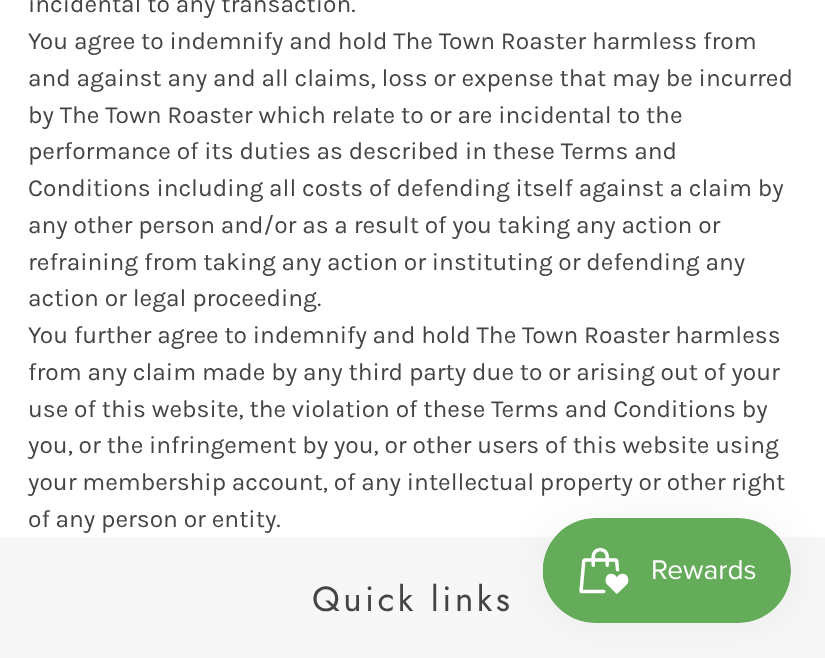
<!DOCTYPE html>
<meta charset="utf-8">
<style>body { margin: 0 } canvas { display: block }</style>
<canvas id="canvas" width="825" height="658"></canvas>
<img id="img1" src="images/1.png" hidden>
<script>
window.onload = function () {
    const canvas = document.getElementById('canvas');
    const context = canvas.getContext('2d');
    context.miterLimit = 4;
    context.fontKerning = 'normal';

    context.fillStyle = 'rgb(255, 255, 255)';
    context.fillRect(0, 0, 825, 658);
    context.fillStyle = 'rgb(247, 247, 247)';
    context.fillRect(0, 537, 825, 121);
    context.fillStyle = 'rgba(0, 0, 0, 0.05)';
    context.filter = 'blur(22px)';
    context.beginPath();
    context.roundRect(543, 518, 248, 105, 52.5);
    context.fill();
    context.filter = 'none';
    context.drawImage(document.getElementById('img1'), 542, 518, 249, 105);
    context.font = '24.5px Karla';
    context.fillStyle = 'rgb(68, 68, 68)';
    context.fillText('incidental to any transaction.', 28, 12);
    context.fillText('You agree to indemnify and hold The Town Roaster harmless from', 28, 49);
    context.fillText('and against any and all claims, loss or expense that may be incurred', 28, 86);
    context.fillText('by The Town Roaster which relate to or are incidental to the', 28, 123);
    context.fillText('performance of its duties as described in these Terms and', 28, 159);
    context.fillText('Conditions including all costs of defending itself against a claim by', 28, 196);
    context.fillText('any other person and/or as a result of you taking any action or', 28, 233);
    context.fillText('refraining from taking any action or instituting or defending any', 28, 270);
    context.fillText('action or legal proceeding.', 28, 306);
    context.fillText('You further agree to indemnify and hold The Town Roaster harmless', 28, 343);
    context.fillText('from any claim made by any third party due to or arising out of your', 28, 380);
    context.fillText('use of this website, the violation of these Terms and Conditions by', 28, 417);
    context.fillText('you, or the infringement by you, or other users of this website using', 28, 453);
    context.fillText('your membership account, of any intellectual property or other right', 28, 490);
    context.fillText('of any person or entity.', 28, 527);
    context.letterSpacing = '3.5px';
    context.font = '35px Jost';
    context.fillText('Quick links', 312, 611);
};
</script>
